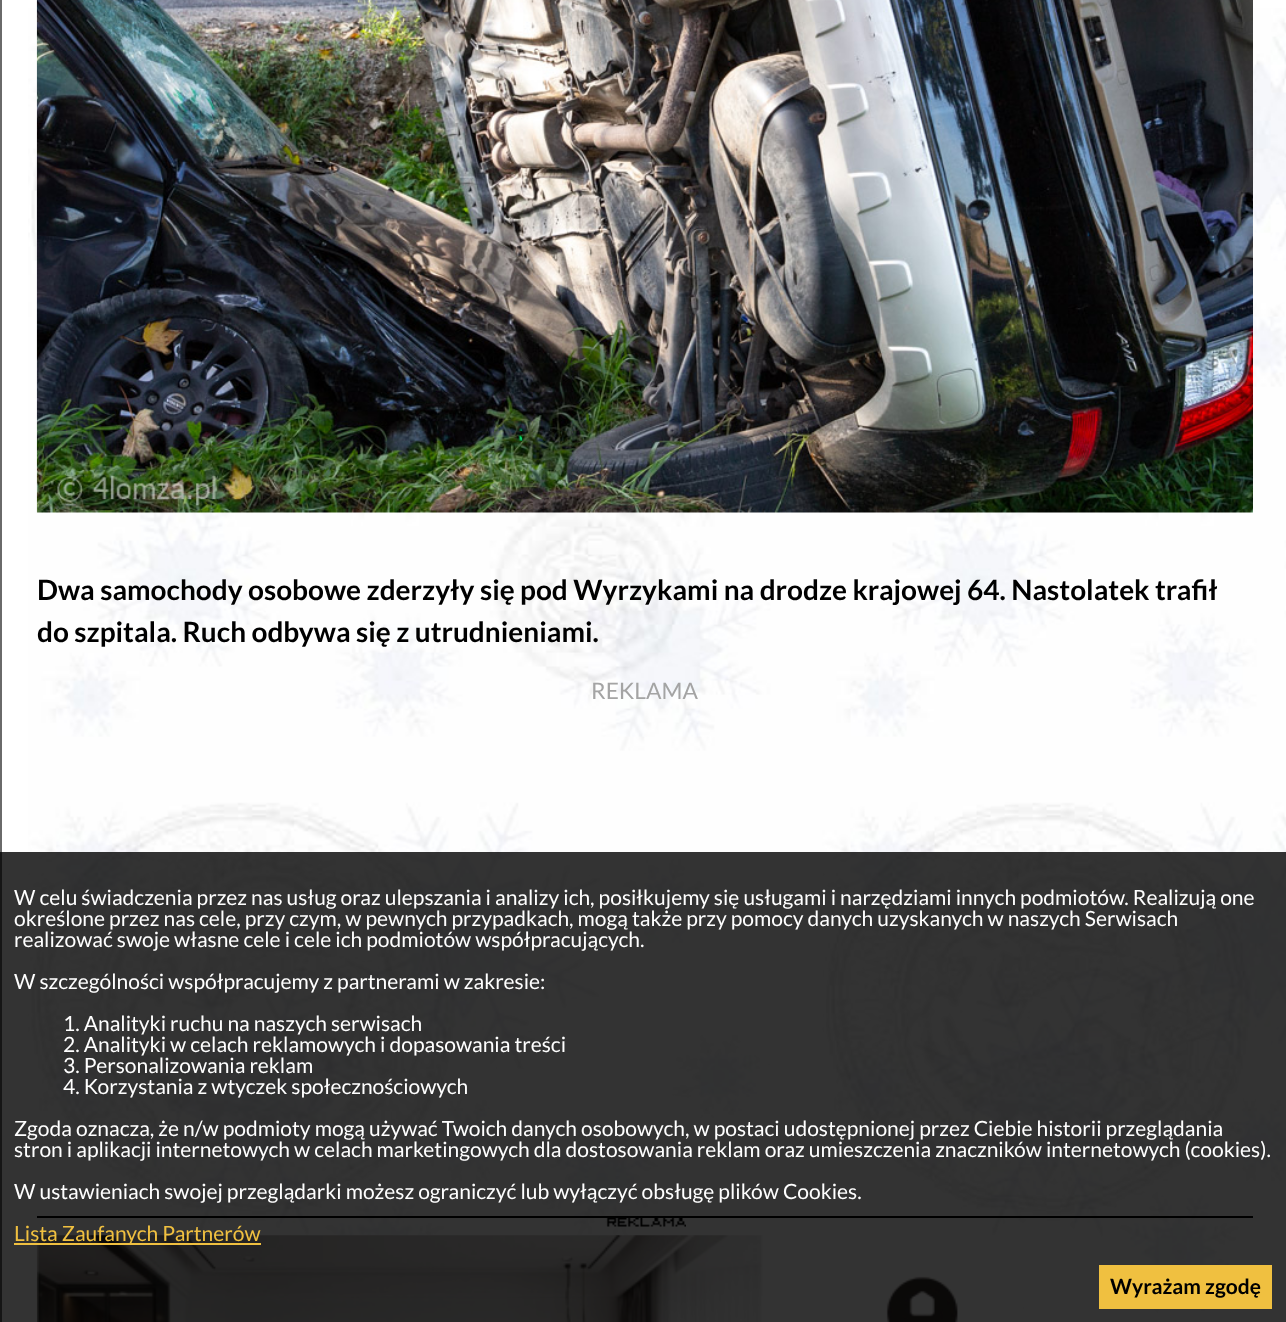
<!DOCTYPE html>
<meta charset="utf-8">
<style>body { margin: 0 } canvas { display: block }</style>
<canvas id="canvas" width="1286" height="1322"></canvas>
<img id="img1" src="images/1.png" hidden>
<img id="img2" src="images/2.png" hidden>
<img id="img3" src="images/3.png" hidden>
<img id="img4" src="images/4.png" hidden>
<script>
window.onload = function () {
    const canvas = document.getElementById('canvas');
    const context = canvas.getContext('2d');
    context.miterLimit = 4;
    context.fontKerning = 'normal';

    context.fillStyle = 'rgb(255, 255, 255)';
    context.fillRect(0, 0, 1286, 1322);
    context.drawImage(document.getElementById('img1'), 28, 8, 1258, 1314);
    context.fillStyle = 'rgb(106, 106, 106)';
    context.fillRect(0, 0, 2, 1322);
    context.drawImage(document.getElementById('img2'), 36, 0, 1217, 513);
    context.drawImage(document.getElementById('img3'), 606, 1218, 80, 9);
    context.fillStyle = 'rgb(0, 0, 0)';
    context.fillRect(37, 1216, 1216, 2);
    context.drawImage(document.getElementById('img4'), 36, 1235, 987, 87);
    context.fillStyle = 'rgba(0, 0, 0, 0.8)';
    context.fillRect(0, 852, 1286, 470);
    context.fillStyle = 'rgb(240, 192, 64)';
    context.fillRect(14, 1243, 247, 2);
    context.fillRect(1099, 1265, 173, 44);
    context.font = 'bold 28px Lato';
    context.fillStyle = 'rgb(0, 0, 0)';
    context.fillText('Dwa samochody osobowe zderzyły się pod Wyrzykami na drodze krajowej 64. Nastolatek trafił', 37, 600);
    context.fillText('do szpitala. Ruch odbywa się z utrudnieniami.', 37, 642);
    context.font = '22.75px Lato';
    context.fillStyle = 'rgb(164, 164, 164)';
    context.fillText('REKLAMA', 591, 699);
    context.font = '21px Lato';
    context.fillStyle = 'rgb(255, 255, 255)';
    context.fillText('W celu świadczenia przez nas usług oraz ulepszania i analizy ich, posiłkujemy się usługami i narzędziami innych podmiotów. Realizują one', 14, 905);
    context.fillText('określone przez nas cele, przy czym, w pewnych przypadkach, mogą także przy pomocy danych uzyskanych w naszych Serwisach', 14, 926);
    context.fillText('realizować swoje własne cele i cele ich podmiotów współpracujących.', 14, 947);
    context.fillText('W szczególności współpracujemy z partnerami w zakresie:', 14, 989);
    context.fillText('1. Analityki ruchu na naszych serwisach', 63, 1031);
    context.fillText('2. Analityki w celach reklamowych i dopasowania treści', 63, 1052);
    context.fillText('3. Personalizowania reklam', 63, 1073);
    context.fillText('4. Korzystania z wtyczek społecznościowych', 63, 1094);
    context.fillText('Zgoda oznacza, że n/w podmioty mogą używać Twoich danych osobowych, w postaci udostępnionej przez Ciebie historii przeglądania', 14, 1136);
    context.fillText('stron i aplikacji internetowych w celach marketingowych dla dostosowania reklam oraz umieszczenia znaczników internetowych (cookies).', 14, 1157);
    context.fillText('W ustawieniach swojej przeglądarki możesz ograniczyć lub wyłączyć obsługę plików Cookies.', 14, 1199);
    context.fillStyle = 'rgb(240, 192, 64)';
    context.fillText('Lista Zaufanych Partnerów', 14, 1241);
    context.font = 'bold 21px Lato';
    context.fillStyle = 'rgb(0, 0, 0)';
    context.fillText('Wyrażam zgodę', 1110, 1294);
};
</script>
